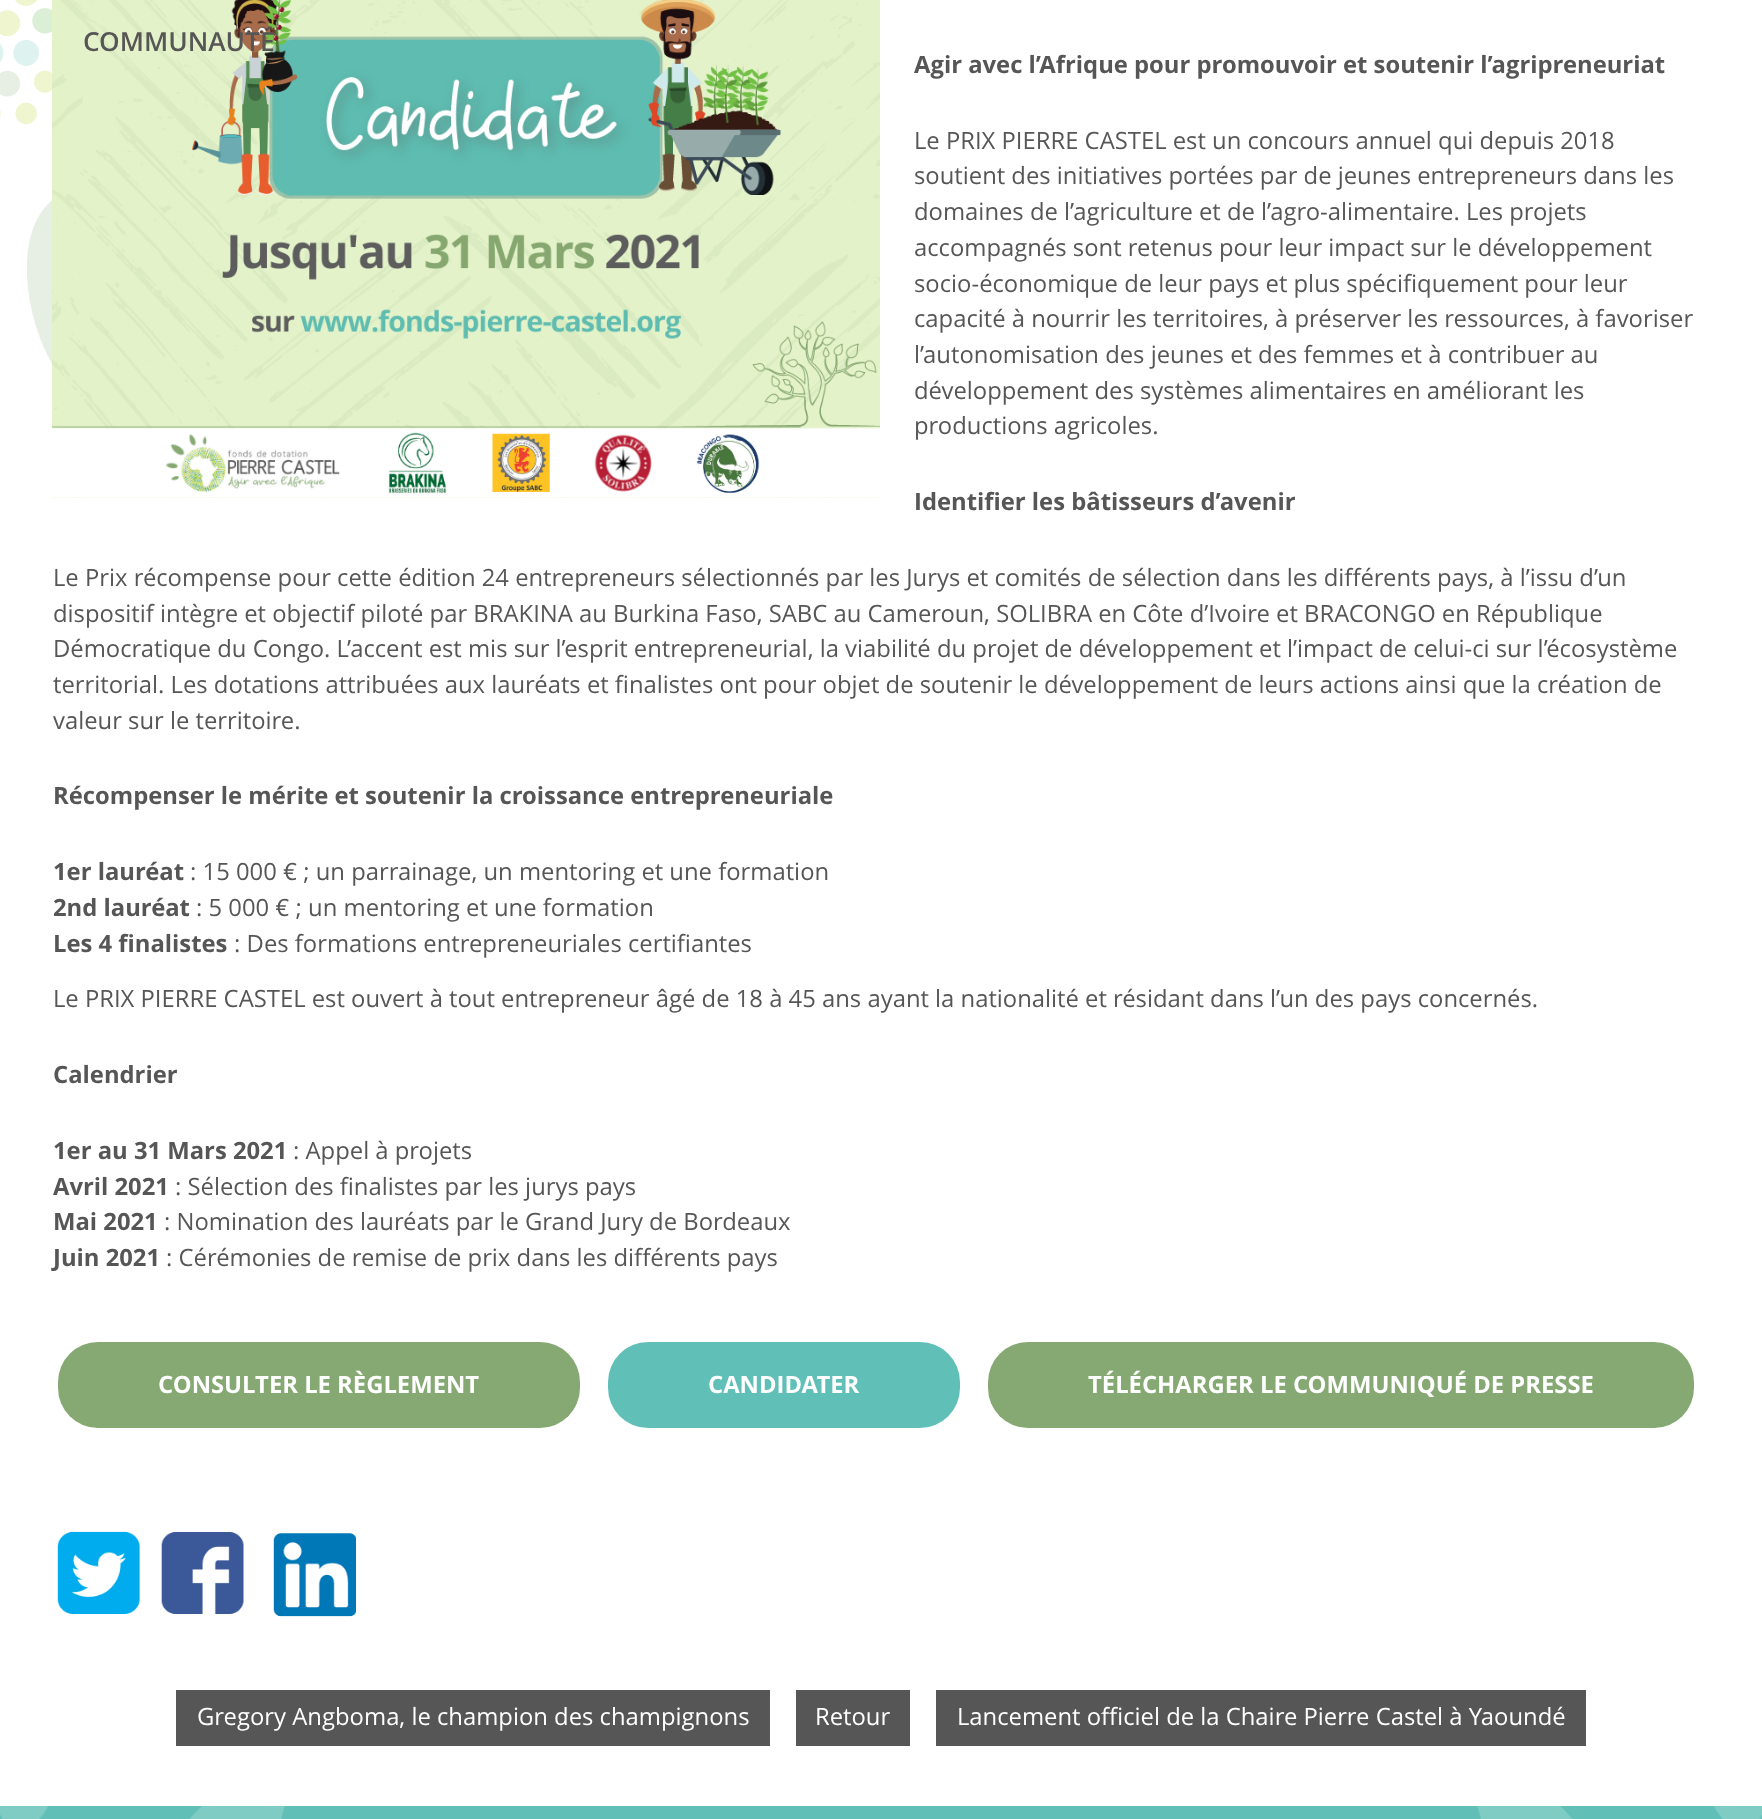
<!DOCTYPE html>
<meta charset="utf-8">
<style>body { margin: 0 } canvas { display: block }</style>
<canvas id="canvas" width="1762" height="1819"></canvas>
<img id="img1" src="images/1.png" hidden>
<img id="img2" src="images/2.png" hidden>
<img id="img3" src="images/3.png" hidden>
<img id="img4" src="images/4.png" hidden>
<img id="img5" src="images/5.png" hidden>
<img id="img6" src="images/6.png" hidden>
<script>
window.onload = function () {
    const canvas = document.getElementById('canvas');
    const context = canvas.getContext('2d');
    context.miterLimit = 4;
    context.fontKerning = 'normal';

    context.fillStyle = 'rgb(255, 255, 255)';
    context.fillRect(0, 0, 1762, 1819);
    context.drawImage(document.getElementById('img1'), 0, 0, 52, 363);
    context.drawImage(document.getElementById('img2'), 52, 0, 828, 498);
    context.fillStyle = 'rgb(134, 169, 116)';
    context.beginPath();
    context.roundRect(58, 1342, 522, 86, 40);
    context.fill();
    context.fillStyle = 'rgb(96, 192, 183)';
    context.beginPath();
    context.roundRect(608, 1342, 352, 86, 40);
    context.fill();
    context.fillStyle = 'rgb(134, 169, 116)';
    context.beginPath();
    context.roundRect(988, 1342, 706, 86, 40);
    context.fill();
    context.drawImage(document.getElementById('img3'), 57, 1531, 83, 83);
    context.drawImage(document.getElementById('img4'), 161, 1532, 83, 82);
    context.drawImage(document.getElementById('img5'), 273, 1533, 83, 84);
    context.fillStyle = 'rgb(87, 86, 86)';
    context.fillRect(176, 1690, 594, 56);
    context.fillRect(796, 1690, 114, 56);
    context.fillRect(936, 1690, 650, 56);
    context.fillStyle = 'rgb(96, 192, 183)';
    context.fillRect(0, 1806, 1762, 13);
    context.drawImage(document.getElementById('img6'), 0, 1806, 1762, 13);
    context.font = '600 26.25px Open Sans';
    context.fillStyle = 'rgb(87, 86, 86)';
    context.fillText('COMMUNAUTÉ', 83, 51);
    context.font = 'bold 23.82px Open Sans';
    context.fillText('Agir avec l’Afrique pour promouvoir et soutenir l’agripreneuriat', 914, 73);
    context.font = '23.82px Open Sans';
    context.fillText('Le PRIX PIERRE CASTEL est un concours annuel qui depuis 2018', 914, 149);
    context.fillText('soutient des initiatives portées par de jeunes entrepreneurs dans les', 914, 184);
    context.fillText('domaines de l’agriculture et de l’agro-alimentaire. Les projets', 914, 220);
    context.fillText('accompagnés sont retenus pour leur impact sur le développement', 914, 256);
    context.fillText('socio-économique de leur pays et plus spécifiquement pour leur', 914, 292);
    context.fillText('capacité à nourrir les territoires, à préserver les ressources, à favoriser', 914, 327);
    context.fillText('l’autonomisation des jeunes et des femmes et à contribuer au', 914, 363);
    context.fillText('développement des systèmes alimentaires en améliorant les', 914, 399);
    context.fillText('productions agricoles.', 914, 434);
    context.font = 'bold 23.82px Open Sans';
    context.fillText('Identifier les bâtisseurs d’avenir', 914, 510);
    context.font = '23.82px Open Sans';
    context.fillText('Le Prix récompense pour cette édition 24 entrepreneurs sélectionnés par les Jurys et comités de sélection dans les différents pays, à l’issu d’un', 53, 586);
    context.fillText('dispositif intègre et objectif piloté par BRAKINA au Burkina Faso, SABC au Cameroun, SOLIBRA en Côte d’Ivoire et BRACONGO en République', 53, 622);
    context.fillText('Démocratique du Congo. L’accent est mis sur l’esprit entrepreneurial, la viabilité du projet de développement et l’impact de celui-ci sur l’écosystème', 53, 657);
    context.fillText('territorial. Les dotations attribuées aux lauréats et finalistes ont pour objet de soutenir le développement de leurs actions ainsi que la création de', 53, 693);
    context.fillText('valeur sur le territoire.', 53, 729);
    context.font = 'bold 23.82px Open Sans';
    context.fillText('Récompenser le mérite et soutenir la croissance entrepreneuriale', 53, 804);
    context.fillText('1er lauréat', 53, 880);
    context.font = '23.82px Open Sans';
    context.fillText(': 15 000 € ; un parrainage, un mentoring et une formation', 190, 880);
    context.font = 'bold 23.82px Open Sans';
    context.fillText('2nd lauréat', 53, 916);
    context.font = '23.82px Open Sans';
    context.fillText(': 5 000 € ; un mentoring et une formation', 196, 916);
    context.font = 'bold 23.82px Open Sans';
    context.fillText('Les 4 finalistes', 53, 952);
    context.font = '23.82px Open Sans';
    context.fillText(': Des formations entrepreneuriales certifiantes', 234, 952);
    context.fillText('Le PRIX PIERRE CASTEL est ouvert à tout entrepreneur âgé de 18 à 45 ans ayant la nationalité et résidant dans l’un des pays concernés.', 53, 1007);
    context.font = 'bold 23.82px Open Sans';
    context.fillText('Calendrier', 53, 1083);
    context.fillText('1er au 31 Mars 2021', 53, 1159);
    context.font = '23.82px Open Sans';
    context.fillText(': Appel à projets', 293, 1159);
    context.font = 'bold 23.82px Open Sans';
    context.fillText('Avril 2021', 53, 1195);
    context.font = '23.82px Open Sans';
    context.fillText(': Sélection des finalistes par les jurys pays', 175, 1195);
    context.font = 'bold 23.82px Open Sans';
    context.fillText('Mai 2021', 53, 1230);
    context.font = '23.82px Open Sans';
    context.fillText(': Nomination des lauréats par le Grand Jury de Bordeaux', 164, 1230);
    context.font = 'bold 23.82px Open Sans';
    context.fillText('Juin 2021', 53, 1266);
    context.font = '23.82px Open Sans';
    context.fillText(': Cérémonies de remise de prix dans les différents pays', 166, 1266);
    context.font = 'bold 23.82px Open Sans';
    context.fillStyle = 'rgb(255, 255, 255)';
    context.fillText('CONSULTER LE RÈGLEMENT', 158, 1393);
    context.fillText('CANDIDATER', 708, 1393);
    context.fillText('TÉLÉCHARGER LE COMMUNIQUÉ DE PRESSE', 1088, 1393);
    context.font = '23.82px Open Sans';
    context.fillText('Gregory Angboma, le champion des champignons', 197, 1725);
    context.fillText('Retour', 815, 1725);
    context.fillText('Lancement officiel de la Chaire Pierre Castel à Yaoundé', 957, 1725);
};
</script>
